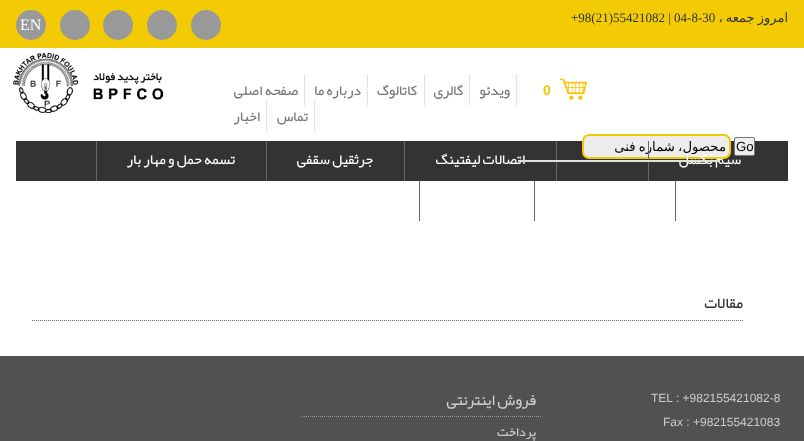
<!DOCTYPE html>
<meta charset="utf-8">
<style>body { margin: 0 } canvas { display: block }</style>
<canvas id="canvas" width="804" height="441"></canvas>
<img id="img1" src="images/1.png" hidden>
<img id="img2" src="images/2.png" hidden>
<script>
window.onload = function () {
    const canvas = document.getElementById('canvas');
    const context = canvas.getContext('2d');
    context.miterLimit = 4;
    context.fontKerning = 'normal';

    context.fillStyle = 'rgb(255, 255, 255)';
    context.fillRect(0, 0, 804, 441);
    context.fillStyle = 'rgb(242, 203, 4)';
    context.fillRect(0, 0, 804, 48);
    context.fillStyle = 'rgb(153, 153, 153)';
    context.beginPath();
    context.arc(206, 25, 15, 0, 2 * Math.PI);
    context.fill();
    context.beginPath();
    context.arc(162, 25, 15, 0, 2 * Math.PI);
    context.fill();
    context.beginPath();
    context.arc(118, 25, 15, 0, 2 * Math.PI);
    context.fill();
    context.beginPath();
    context.arc(75, 25, 15, 0, 2 * Math.PI);
    context.fill();
    context.beginPath();
    context.arc(31, 25, 15, 0, 2 * Math.PI);
    context.fill();
    context.drawImage(document.getElementById('img1'), 560, 78, 28, 22);
    context.beginPath();
    context.moveTo(516.5, 75);
    context.lineTo(516.5, 106);
    context.strokeStyle = 'rgb(204, 204, 204)';
    context.setLineDash([1, 1]);
    context.stroke();
    context.beginPath();
    context.moveTo(469.5, 75);
    context.lineTo(469.5, 106);
    context.stroke();
    context.beginPath();
    context.moveTo(424.5, 75);
    context.lineTo(424.5, 106);
    context.stroke();
    context.beginPath();
    context.moveTo(367.5, 75);
    context.lineTo(367.5, 106);
    context.stroke();
    context.beginPath();
    context.moveTo(304.5, 75);
    context.lineTo(304.5, 106);
    context.stroke();
    context.beginPath();
    context.moveTo(314.5, 101);
    context.lineTo(314.5, 132);
    context.stroke();
    context.beginPath();
    context.moveTo(266.5, 101);
    context.lineTo(266.5, 132);
    context.stroke();
    context.drawImage(document.getElementById('img2'), 13, 53, 151, 60);
    context.fillStyle = 'rgb(51, 51, 51)';
    context.fillRect(16, 141, 772, 40);
    context.fillStyle = 'rgb(239, 239, 239)';
    context.beginPath();
    context.roundRect(734.5, 137.5, 20, 18, 1.5);
    context.fill();
    context.strokeStyle = 'rgb(118, 118, 118)';
    context.setLineDash([]);
    context.stroke();
    context.fillStyle = 'rgb(237, 237, 237)';
    context.beginPath();
    context.roundRect(583, 135, 147, 23, 6);
    context.fill();
    context.strokeStyle = 'rgb(242, 203, 4)';
    context.lineWidth = 2;
    context.stroke();
    context.fillStyle = 'rgb(102, 102, 102)';
    context.fillRect(556, 141, 1, 40);
    context.fillRect(404, 141, 1, 40);
    context.fillRect(266, 141, 1, 40);
    context.fillRect(96, 141, 1, 40);
    context.fillRect(675, 181, 1, 40);
    context.fillRect(534, 181, 1, 40);
    context.fillRect(419, 181, 1, 40);
    context.beginPath();
    context.moveTo(32, 320.5);
    context.lineTo(743, 320.5);
    context.strokeStyle = 'rgb(102, 102, 102)';
    context.lineWidth = 1;
    context.setLineDash([1, 1]);
    context.stroke();
    context.fillStyle = 'rgb(81, 81, 81)';
    context.fillRect(0, 356, 804, 85);
    context.beginPath();
    context.moveTo(302, 416.5);
    context.lineTo(541, 416.5);
    context.strokeStyle = 'rgb(153, 153, 153)';
    context.stroke();
    context.wordSpacing = '-1px';
    context.direction = 'rtl';
    context.font = '13px DejaVu Sans';
    context.fillStyle = 'rgb(51, 51, 51)';
    context.fillText('امروز جمعه ،', 788, 22);
    context.wordSpacing = '0px';
    context.direction = 'ltr';
    context.font = '13px Liberation Serif';
    context.fillText('+98(21)55421082 | 04-8-30', 571, 22);
    context.font = '16px Liberation Serif';
    context.fillStyle = 'rgb(255, 255, 255)';
    context.fillText('EN', 20, 30);
    context.font = 'bold 14px Liberation Sans';
    context.fillStyle = 'rgb(242, 203, 4)';
    context.fillText('0', 543, 95);
    context.direction = 'rtl';
    context.font = '12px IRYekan';
    context.fillStyle = 'rgb(119, 119, 119)';
    context.fillText('ویدئو', 510, 95);
    context.fillText('گالری', 463, 95);
    context.fillText('کاتالوگ', 417, 95);
    context.fillText('درباره ما', 361, 95);
    context.fillText('صفحه اصلی', 298, 95);
    context.fillText('تماس', 308, 121);
    context.fillText('اخبار', 260, 121);
    context.direction = 'ltr';
    context.font = '13.25px Liberation Sans';
    context.fillStyle = 'rgb(0, 0, 0)';
    context.fillText('Go', 736, 151);
    context.save();
    context.beginPath();
    context.rect(587, 139, 139, 15);
    context.clip();
    context.wordSpacing = '-1px';
    context.direction = 'rtl';
    context.font = '13.25px DejaVu Sans';
    context.fillText('محصول، شماره فنی', 726, 151);
    context.restore();
    context.fillStyle = 'rgb(102, 102, 102)';
    context.fillRect(648, 141, 1, 40);
    context.direction = 'rtl';
    context.font = '12px IRYekan';
    context.fillStyle = 'rgb(255, 255, 255)';
    context.fillText('سیم بکسل', 741, 164);
    context.fillText('اتصالات لیفتینگ', 525, 164);
    context.fillStyle = 'rgb(224, 224, 224)';
    context.fillRect(518, 160, 202, 2);
    context.fillStyle = 'rgb(255, 255, 255)';
    context.fillText('جرثقیل سقفی', 373, 164);
    context.fillText('تسمه حمل و مهار بار', 235, 164);
    context.font = '13px IRYekan';
    context.fillStyle = 'rgb(51, 51, 51)';
    context.fillText('مقالات', 743, 308);
    context.direction = 'ltr';
    context.font = '12px Liberation Sans';
    context.fillStyle = 'rgb(204, 204, 204)';
    context.fillText('TEL : +982155421082-8', 651, 402);
    context.fillText('Fax : +982155421083', 663, 426);
    context.direction = 'rtl';
    context.font = '13px IRYekan';
    context.fillText('فروش اینترنتی', 536, 405);
    context.font = '11px IRYekan';
    context.fillText('پرداخت', 536, 436);
};
</script>
